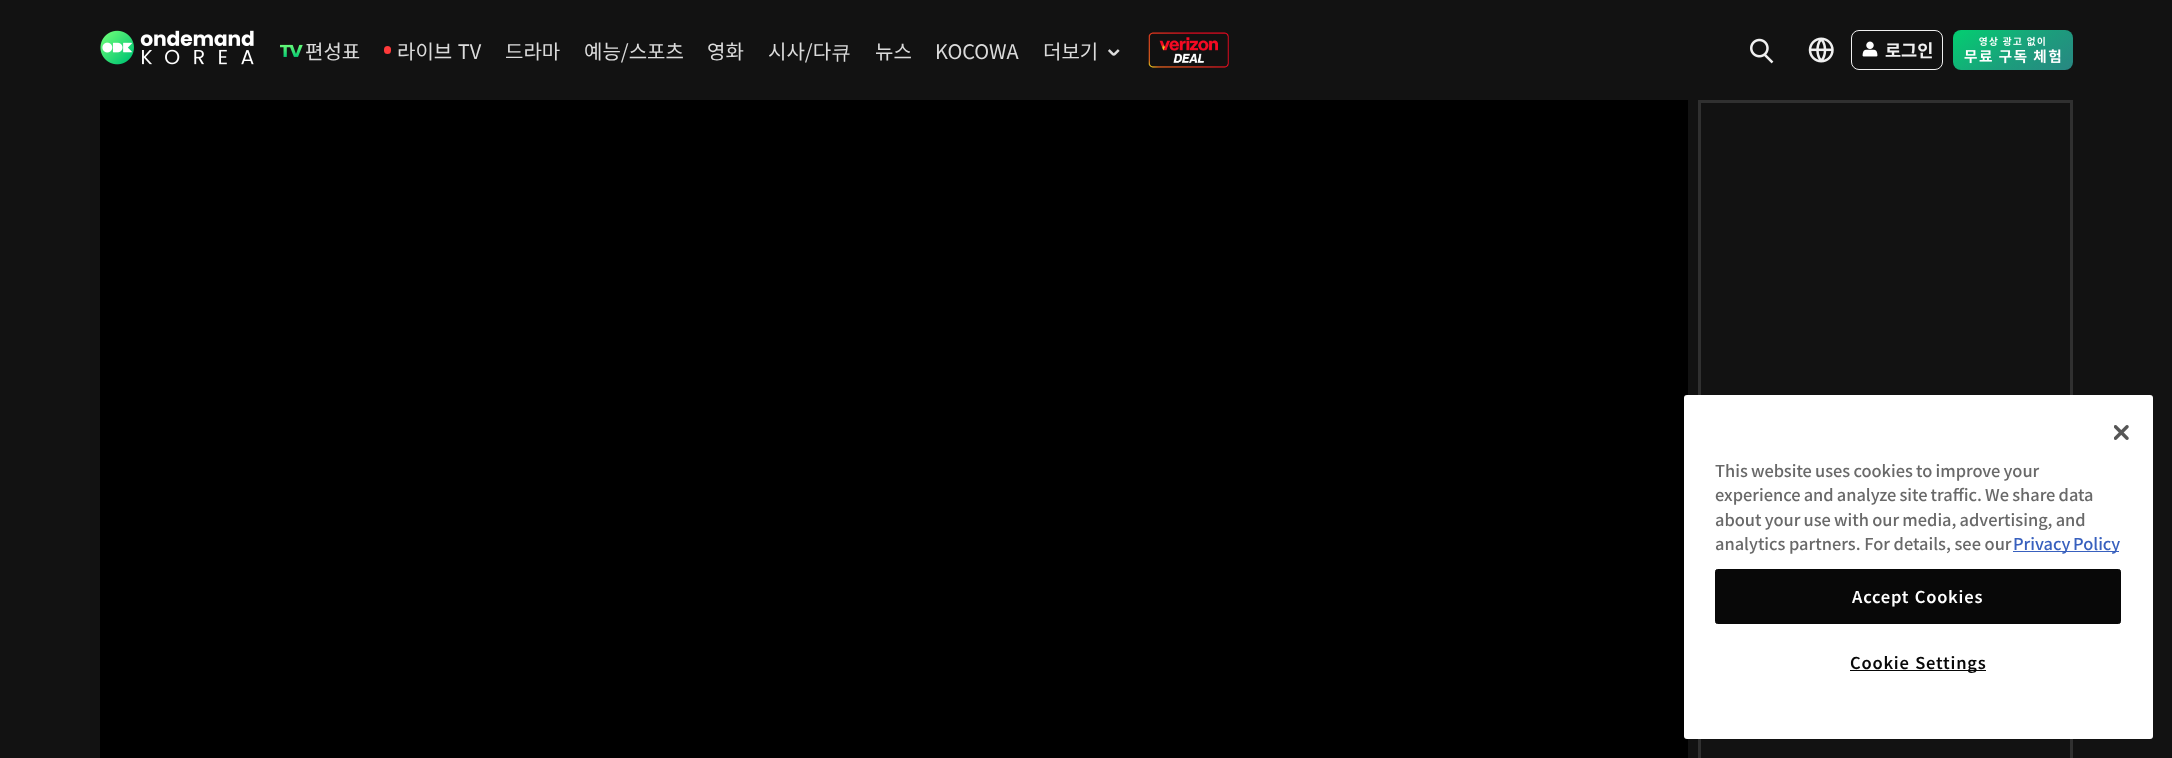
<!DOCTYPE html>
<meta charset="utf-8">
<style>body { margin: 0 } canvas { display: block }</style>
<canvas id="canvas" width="2172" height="758"></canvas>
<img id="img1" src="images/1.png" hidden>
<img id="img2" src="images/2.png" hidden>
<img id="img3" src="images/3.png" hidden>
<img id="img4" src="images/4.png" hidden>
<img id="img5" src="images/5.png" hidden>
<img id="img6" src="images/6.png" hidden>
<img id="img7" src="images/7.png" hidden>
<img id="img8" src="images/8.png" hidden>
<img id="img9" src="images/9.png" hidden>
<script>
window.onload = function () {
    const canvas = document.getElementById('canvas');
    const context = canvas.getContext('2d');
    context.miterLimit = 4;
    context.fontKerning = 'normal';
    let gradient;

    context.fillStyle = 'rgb(18, 18, 18)';
    context.fillRect(0, 0, 2172, 758);
    context.drawImage(document.getElementById('img1'), 100, 30, 154, 35);
    context.drawImage(document.getElementById('img2'), 280, 44, 23, 13);
    context.fillStyle = 'rgb(255, 58, 58)';
    context.beginPath();
    context.roundRect(384, 46, 7, 8, 3.5);
    context.fill();
    context.drawImage(document.getElementById('img3'), 1108, 49, 12, 7);
    context.drawImage(document.getElementById('img4'), 1148, 32, 81, 36);
    context.drawImage(document.getElementById('img5'), 1750, 38, 24, 26);
    context.drawImage(document.getElementById('img6'), 1808, 37, 26, 26);
    context.beginPath();
    context.roundRect(1851.5, 30.5, 91, 39, 7.5);
    context.strokeStyle = 'rgb(240, 240, 240)';
    context.stroke();
    context.drawImage(document.getElementById('img7'), 1862, 41, 16, 16);
    gradient = context.createLinearGradient(1982, 8, 2043, 92);
    gradient.addColorStop(0.08, 'rgb(6, 201, 114)');
    gradient.addColorStop(0.58, 'rgb(28, 157, 124)');
    gradient.addColorStop(0.99, 'rgb(40, 135, 130)');
    context.fillStyle = gradient;
    context.beginPath();
    context.roundRect(1953, 30, 120, 40, 8);
    context.fill();
    context.drawImage(document.getElementById('img8'), 1964, 36, 97, 28);
    context.fillStyle = 'rgb(0, 0, 0)';
    context.fillRect(100, 100, 1588, 658);
    context.strokeStyle = 'rgb(48, 48, 48)';
    context.lineWidth = 3;
    context.strokeRect(1699.5, 101.5, 372, 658);
    context.fillStyle = 'rgb(255, 255, 255)';
    context.beginPath();
    context.roundRect(1684, 395, 469, 344, 3);
    context.fill();
    context.drawImage(document.getElementById('img9'), 2114, 425, 15, 15);
    context.fillStyle = 'rgb(56, 96, 190)';
    context.fillRect(2013, 551, 106, 1);
    context.fillStyle = 'rgb(8, 8, 8)';
    context.beginPath();
    context.roundRect(1715.5, 569.5, 405, 54, 2);
    context.fill();
    context.strokeStyle = 'rgb(8, 8, 8)';
    context.lineWidth = 1;
    context.stroke();
    context.fillRect(1850, 670, 136, 1);
    context.font = '20px Noto Sans KR';
    context.fillStyle = 'rgb(219, 219, 219)';
    context.fillText('편성표', 305, 59);
    context.wordSpacing = '1px';
    context.fillText('라이브 TV', 397, 59);
    context.wordSpacing = '0px';
    context.fillText('드라마', 505, 59);
    context.fillText('예능/스포츠', 584, 59);
    context.fillText('영화', 707, 59);
    context.fillText('시사/다', 768, 59);
    context.font = '500 20px WenQuanYi Zen Hei';
    context.fillText('큐', 831, 59);
    context.font = '20px Noto Sans KR';
    context.fillText('뉴스', 875, 59);
    context.fillText('KOCOWA', 935, 59);
    context.fillText('더보기', 1043, 59);
    context.font = 'bold 17.5px Noto Sans KR';
    context.fillStyle = 'rgb(240, 240, 240)';
    context.fillText('로그인', 1885, 57);
    context.wordSpacing = '-0.5px';
    context.font = '500 16.4px Noto Sans KR';
    context.fillStyle = 'rgb(105, 105, 105)';
    context.fillText('This website uses cookies to improve your', 1715, 477);
    context.fillText('experience and analyze site traffic. We share data', 1715, 501);
    context.fillText('about your use with our media, advertising, and', 1715, 526);
    context.wordSpacing = '0px';
    context.fillText('analytics partners. For details, see our', 1715, 550);
    context.wordSpacing = '-1px';
    context.fillStyle = 'rgb(56, 96, 190)';
    context.fillText('Privacy Policy', 2013, 550);
    context.letterSpacing = '0.8px';
    context.wordSpacing = '1px';
    context.font = '600 16.4px Noto Sans KR';
    context.fillStyle = 'rgb(255, 255, 255)';
    context.fillText('Accept Cookies', 1852, 603);
    context.fillStyle = 'rgb(8, 8, 8)';
    context.fillText('Cookie Settings', 1850, 669);
};
</script>
